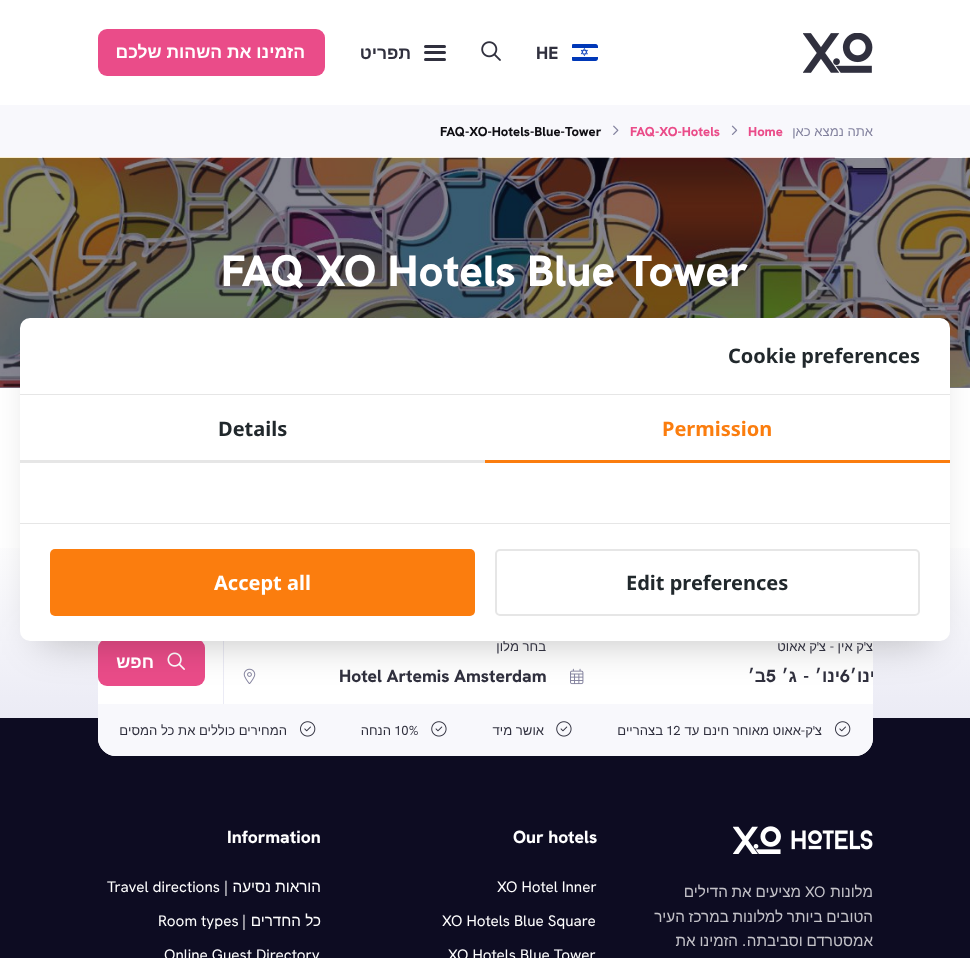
<!DOCTYPE html>
<meta charset="utf-8">
<style>body { margin: 0 } canvas { display: block }</style>
<canvas id="canvas" width="970" height="958"></canvas>
<img id="img1" src="images/1.png" hidden>
<img id="img2" src="images/2.png" hidden>
<img id="img3" src="images/3.png" hidden>
<img id="img4" src="images/4.png" hidden>
<img id="img5" src="images/5.png" hidden>
<img id="img6" src="images/6.png" hidden>
<img id="img7" src="images/7.png" hidden>
<img id="img8" src="images/8.png" hidden>
<img id="img9" src="images/9.png" hidden>
<img id="img10" src="images/10.png" hidden>
<img id="img11" src="images/11.png" hidden>
<img id="img12" src="images/12.png" hidden>
<script>
window.onload = function () {
    const canvas = document.getElementById('canvas');
    const context = canvas.getContext('2d');
    context.miterLimit = 4;
    context.fontKerning = 'normal';
    let gradient;

    context.fillStyle = 'rgb(255, 255, 255)';
    context.fillRect(0, 0, 970, 958);
    context.fillStyle = 'rgb(234, 76, 137)';
    context.beginPath();
    context.roundRect(98, 29, 227, 47, 9);
    context.fill();
    context.fillStyle = 'rgb(48, 48, 62)';
    context.beginPath();
    context.roundRect(424, 45, 22, 3, 1.5);
    context.fill();
    context.beginPath();
    context.roundRect(424, 51, 22, 3, 1.5);
    context.fill();
    context.beginPath();
    context.roundRect(424, 58, 22, 3, 1.5);
    context.fill();
    context.drawImage(document.getElementById('img1'), 481, 41, 20, 20);
    context.drawImage(document.getElementById('img2'), 572, 44, 26, 17);
    context.drawImage(document.getElementById('img3'), 803, 33, 70, 40);
    context.fillStyle = 'rgb(248, 248, 252)';
    context.fillRect(0, 105, 970, 53);
    context.drawImage(document.getElementById('img4'), 613, 125, 6, 10);
    context.drawImage(document.getElementById('img5'), 731, 125, 7, 10);
    context.fillStyle = 'rgb(124, 124, 140)';
    context.fillRect(0, 387, 970, 1);
    context.drawImage(document.getElementById('img6'), 0, 157, 970, 231);
    gradient = context.createLinearGradient(485, 524, 485, 718);
    gradient.addColorStop(0, 'rgb(255, 255, 255)');
    gradient.addColorStop(1, 'rgb(235, 235, 245)');
    context.fillStyle = gradient;
    context.fillRect(0, 548, 970, 170);
    context.fillStyle = 'rgb(13, 12, 34)';
    context.fillRect(0, 718, 970, 240);
    context.fillStyle = 'rgb(255, 255, 255)';
    context.beginPath();
    context.roundRect(98, 621, 775, 135, 18);
    context.fill();
    context.fillStyle = 'rgb(234, 76, 137)';
    context.beginPath();
    context.roundRect(98, 639, 107, 47, 9);
    context.fill();
    context.drawImage(document.getElementById('img7'), 167, 652, 18, 18);
    context.fillStyle = 'rgb(235, 235, 245)';
    context.fillRect(223, 641, 1, 63);
    context.drawImage(document.getElementById('img8'), 243, 668, 13, 16);
    context.fillStyle = 'rgb(255, 255, 255)';
    context.beginPath();
    context.roundRect(546, 621, 327, 83, [18, 0, 0, 18]);
    context.fill();
    context.drawImage(document.getElementById('img9'), 570, 668, 14, 17);
    context.fillStyle = 'rgb(248, 248, 252)';
    context.beginPath();
    context.roundRect(98, 704, 775, 52, [0, 0, 18, 18]);
    context.fill();
    context.drawImage(document.getElementById('img10'), 300, 721, 16, 16);
    context.drawImage(document.getElementById('img11'), 431, 721, 16, 16);
    context.drawImage(document.getElementById('img11'), 556, 721, 16, 16);
    context.drawImage(document.getElementById('img10'), 835, 721, 16, 16);
    context.drawImage(document.getElementById('img12'), 733, 826, 140, 28);
    context.fillStyle = 'rgba(0, 0, 0, 0.25)';
    context.filter = 'blur(20px)';
    context.beginPath();
    context.rect(40, 358, 890, 283);
    context.fill();
    context.filter = 'none';
    context.direction = 'rtl';
    context.font = 'bold 17.5px Liberation Sans';
    context.fillStyle = 'rgb(255, 255, 255)';
    context.fillText('הזמינו את השהות שלכם', 305, 58);
    context.fillStyle = 'rgb(48, 48, 62)';
    context.fillText('תפריט', 411, 59);
    context.direction = 'ltr';
    context.font = '800 17.5px Hanken Grotesk';
    context.fillText('HE', 536, 59);
    context.font = '800 13.1px Hanken Grotesk';
    context.fillStyle = 'rgb(15, 14, 19)';
    context.fillText('FAQ-XO-Hotels-Blue-Tower', 440, 136);
    context.fillStyle = 'rgb(234, 76, 137)';
    context.fillText('FAQ-XO-Hotels', 630, 136);
    context.fillText('Home', 748, 136);
    context.direction = 'rtl';
    context.font = '13.1px Liberation Sans';
    context.fillStyle = 'rgb(131, 130, 158)';
    context.fillText('אתה נמצא כאן', 873, 136);
    context.direction = 'ltr';
    context.font = '800 43.75px Hanken Grotesk';
    context.fillStyle = 'rgb(255, 255, 255)';
    context.fillText('FAQ XO Hotels Blue Tower', 221, 286);
    context.direction = 'rtl';
    context.font = 'bold 17.5px Liberation Sans';
    context.fillText('חפש', 154, 668);
    context.font = '13.1px Liberation Sans';
    context.fillStyle = 'rgb(48, 48, 62)';
    context.fillText('בחר מלון', 546, 651);
    context.direction = 'ltr';
    context.font = '800 17.5px Hanken Grotesk';
    context.fillText('Hotel Artemis Amsterdam', 339, 682);
    context.direction = 'rtl';
    context.font = '13.1px Liberation Sans';
    context.fillText('ק אאוט', 817, 651);
    context.font = '13.1px Hanken Grotesk';
    context.fillText('\'', 819, 651);
    context.font = '13.1px Liberation Sans';
    context.fillText('צ', 826, 651);
    context.fillText('ק אין', 864, 651);
    context.font = '13.1px Hanken Grotesk';
    context.fillText('\'', 866, 651);
    context.fillText('-', 834, 651);
    context.font = '13.1px Liberation Sans';
    context.fillText('צ', 873, 651);
    context.font = 'bold 17.5px Liberation Sans';
    context.fillText('ב׳', 766, 682);
    context.direction = 'ltr';
    context.font = '800 17.5px Hanken Grotesk';
    context.fillText('5', 766, 682);
    context.direction = 'rtl';
    context.font = 'bold 17.5px Liberation Sans';
    context.fillText('ג׳', 797, 682);
    context.font = '800 17.5px Hanken Grotesk';
    context.fillText('-', 809, 682);
    context.font = 'bold 17.5px Liberation Sans';
    context.fillText('ינו׳', 840, 682);
    context.direction = 'ltr';
    context.font = '800 17.5px Hanken Grotesk';
    context.fillText('6', 840, 682);
    context.save();
    context.beginPath();
    context.rect(594, 665, 279, 21);
    context.clip();
    context.direction = 'rtl';
    context.font = 'bold 17.5px Liberation Sans';
    context.fillText('ינו׳', 875, 682);
    context.restore();
    context.direction = 'rtl';
    context.font = '13.1px Liberation Sans';
    context.fillText('המחירים כוללים את כל המסים', 287, 735);
    context.fillText('הנחה', 391, 735);
    context.direction = 'ltr';
    context.font = '13.1px Hanken Grotesk';
    context.fillText('10%', 394, 735);
    context.direction = 'rtl';
    context.font = '13.1px Liberation Sans';
    context.fillText('אושר מיד', 544, 735);
    context.fillText('בצהריים', 663, 735);
    context.direction = 'ltr';
    context.font = '13.1px Hanken Grotesk';
    context.fillText('12', 666, 735);
    context.direction = 'rtl';
    context.font = '13.1px Liberation Sans';
    context.fillText('אאוט מאוחר חינם עד', 801, 735);
    context.fillText('ק', 813, 735);
    context.font = '13.1px Hanken Grotesk';
    context.fillText('\'', 815, 735);
    context.fillText('-', 805, 735);
    context.font = '13.1px Liberation Sans';
    context.fillText('צ', 822, 735);
    context.direction = 'ltr';
    context.font = '800 17.5px Hanken Grotesk';
    context.fillStyle = 'rgb(255, 255, 255)';
    context.fillText('Information', 227, 843);
    context.font = '15.25px Hanken Grotesk';
    context.fillText('Travel directions', 107, 892);
    context.direction = 'rtl';
    context.fillText('|', 228, 892);
    context.font = '15.25px Liberation Sans';
    context.fillText('הוראות נסיעה', 321, 892);
    context.direction = 'ltr';
    context.font = '15.25px Hanken Grotesk';
    context.fillText('Room types', 158, 926);
    context.direction = 'rtl';
    context.fillText('|', 246, 926);
    context.font = '15.25px Liberation Sans';
    context.fillText('כל החדרים', 321, 926);
    context.direction = 'ltr';
    context.font = '15.25px Hanken Grotesk';
    context.fillText('Online Guest Directory', 164, 960);
    context.font = '800 17.5px Hanken Grotesk';
    context.fillText('Our hotels', 513, 843);
    context.font = '15.25px Hanken Grotesk';
    context.fillText('XO Hotel Inner', 497, 892);
    context.fillText('XO Hotels Blue Square', 442, 926);
    context.fillText('XO Hotels Blue Tower', 448, 960);
    context.wordSpacing = '-0.5px';
    context.direction = 'rtl';
    context.font = '15.25px Liberation Sans';
    context.fillStyle = 'rgb(195, 194, 200)';
    context.fillText('מציעים את הדילים', 801, 897);
    context.wordSpacing = '0px';
    context.direction = 'ltr';
    context.font = '15.25px Hanken Grotesk';
    context.fillText('XO', 805, 897);
    context.direction = 'rtl';
    context.font = '15.25px Liberation Sans';
    context.fillText('מלונות', 873, 897);
    context.wordSpacing = '-0.5px';
    context.fillText('הטובים ביותר למלונות במרכז העיר', 873, 922);
    context.fillText('הזמינו את', 738, 946);
    context.wordSpacing = '0px';
    context.font = '15.25px Hanken Grotesk';
    context.fillText('.', 746, 946);
    context.wordSpacing = '-0.5px';
    context.font = '15.25px Liberation Sans';
    context.fillText('אמסטרדם וסביבתה', 873, 946);
    context.fillStyle = 'rgb(255, 255, 255)';
    context.beginPath();
    context.roundRect(20, 318, 930, 323, 10);
    context.fill();
    context.fillStyle = 'rgb(230, 230, 230)';
    context.fillRect(20, 394, 930, 1);
    context.wordSpacing = '0px';
    context.direction = 'ltr';
    context.font = 'bold 20px Noto Sans';
    context.fillStyle = 'rgb(33, 40, 44)';
    context.fillText('Cookie preferences', 728, 363);
    context.fillStyle = 'rgb(230, 230, 230)';
    context.fillRect(20, 460, 465, 3);
    context.fillStyle = 'rgb(33, 40, 44)';
    context.fillText('Details', 218, 436);
    context.fillStyle = 'rgb(251, 125, 14)';
    context.fillRect(485, 460, 465, 3);
    context.fillText('Permission', 662, 436);
    context.fillStyle = 'rgb(230, 230, 230)';
    context.fillRect(20, 523, 930, 1);
    context.fillStyle = 'rgb(251, 125, 14)';
    context.beginPath();
    context.roundRect(50, 549, 425, 67, 5);
    context.fill();
    context.fillStyle = 'rgb(255, 255, 255)';
    context.fillText('Accept all', 214, 590);
    context.beginPath();
    context.roundRect(496, 550, 423, 65, 4);
    context.strokeStyle = 'rgb(230, 230, 230)';
    context.lineWidth = 2;
    context.stroke();
    context.fillStyle = 'rgb(33, 40, 44)';
    context.fillText('Edit preferences', 626, 590);
};
</script>
